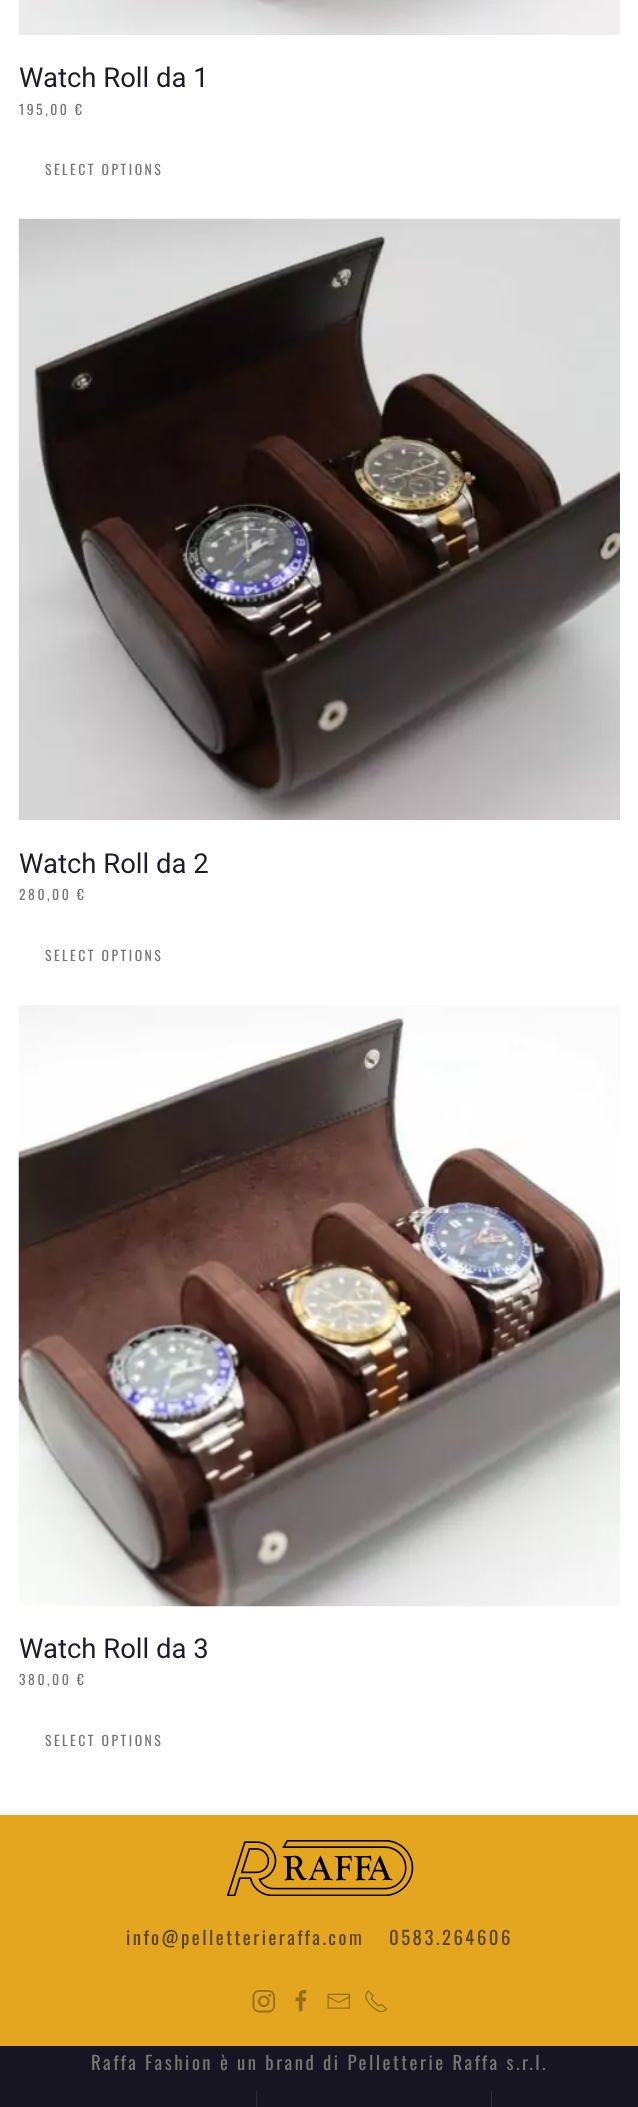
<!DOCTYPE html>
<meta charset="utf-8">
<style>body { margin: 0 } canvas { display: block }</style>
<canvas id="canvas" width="638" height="2107"></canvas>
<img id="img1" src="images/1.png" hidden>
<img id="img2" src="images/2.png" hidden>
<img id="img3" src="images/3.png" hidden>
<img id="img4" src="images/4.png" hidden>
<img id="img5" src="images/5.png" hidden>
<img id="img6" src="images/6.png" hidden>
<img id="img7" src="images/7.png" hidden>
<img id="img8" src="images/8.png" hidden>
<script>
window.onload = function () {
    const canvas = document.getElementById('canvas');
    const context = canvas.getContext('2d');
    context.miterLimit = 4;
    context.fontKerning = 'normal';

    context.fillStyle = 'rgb(255, 255, 255)';
    context.fillRect(0, 0, 638, 2107);
    context.drawImage(document.getElementById('img1'), 18, 0, 602, 35);
    context.drawImage(document.getElementById('img2'), 18, 218, 602, 602);
    context.drawImage(document.getElementById('img3'), 18, 1005, 602, 602);
    context.fillStyle = 'rgb(227, 166, 30)';
    context.fillRect(0, 1815, 638, 231);
    context.drawImage(document.getElementById('img4'), 226, 1840, 188, 56);
    context.drawImage(document.getElementById('img5'), 252, 1990, 23, 23);
    context.drawImage(document.getElementById('img6'), 295, 1990, 12, 22);
    context.drawImage(document.getElementById('img7'), 327, 1993, 23, 16);
    context.drawImage(document.getElementById('img8'), 365, 1990, 23, 23);
    context.fillStyle = 'rgb(22, 21, 33)';
    context.fillRect(0, 2046, 638, 61);
    context.fillStyle = 'rgb(46, 46, 61)';
    context.fillRect(256, 2091, 1, 16);
    context.fillRect(491, 2091, 1, 16);
    context.font = '27.5px Roboto';
    context.fillStyle = 'rgb(29, 28, 43)';
    context.fillText('Watch Roll da 1', 19, 87);
    context.letterSpacing = '2.5px';
    context.font = '13.75px Oswald';
    context.fillStyle = 'rgb(118, 118, 118)';
    context.fillText('195,00 €', 19, 115);
    context.fillText('SELECT OPTIONS', 45, 175);
    context.letterSpacing = '0px';
    context.font = '27.5px Roboto';
    context.fillStyle = 'rgb(29, 28, 43)';
    context.fillText('Watch Roll da 2', 19, 873);
    context.letterSpacing = '2.5px';
    context.font = '13.75px Oswald';
    context.fillStyle = 'rgb(118, 118, 118)';
    context.fillText('280,00 €', 19, 900);
    context.fillText('SELECT OPTIONS', 45, 961);
    context.letterSpacing = '0px';
    context.font = '27.5px Roboto';
    context.fillStyle = 'rgb(29, 28, 43)';
    context.fillText('Watch Roll da 3', 19, 1658);
    context.letterSpacing = '2.5px';
    context.font = '13.75px Oswald';
    context.fillStyle = 'rgb(118, 118, 118)';
    context.fillText('380,00 €', 19, 1685);
    context.fillText('SELECT OPTIONS', 45, 1746);
    context.font = '18.75px Oswald';
    context.fillStyle = 'rgb(88, 69, 39)';
    context.fillText('info@pelletterieraffa.com', 126, 1945);
    context.fillText('0583.264606', 389, 1945);
    context.fillStyle = 'rgb(118, 118, 118)';
    context.fillText('Raffa Fashion è un brand di Pelletterie Raffa s.r.l.', 91, 2070);
};
</script>
